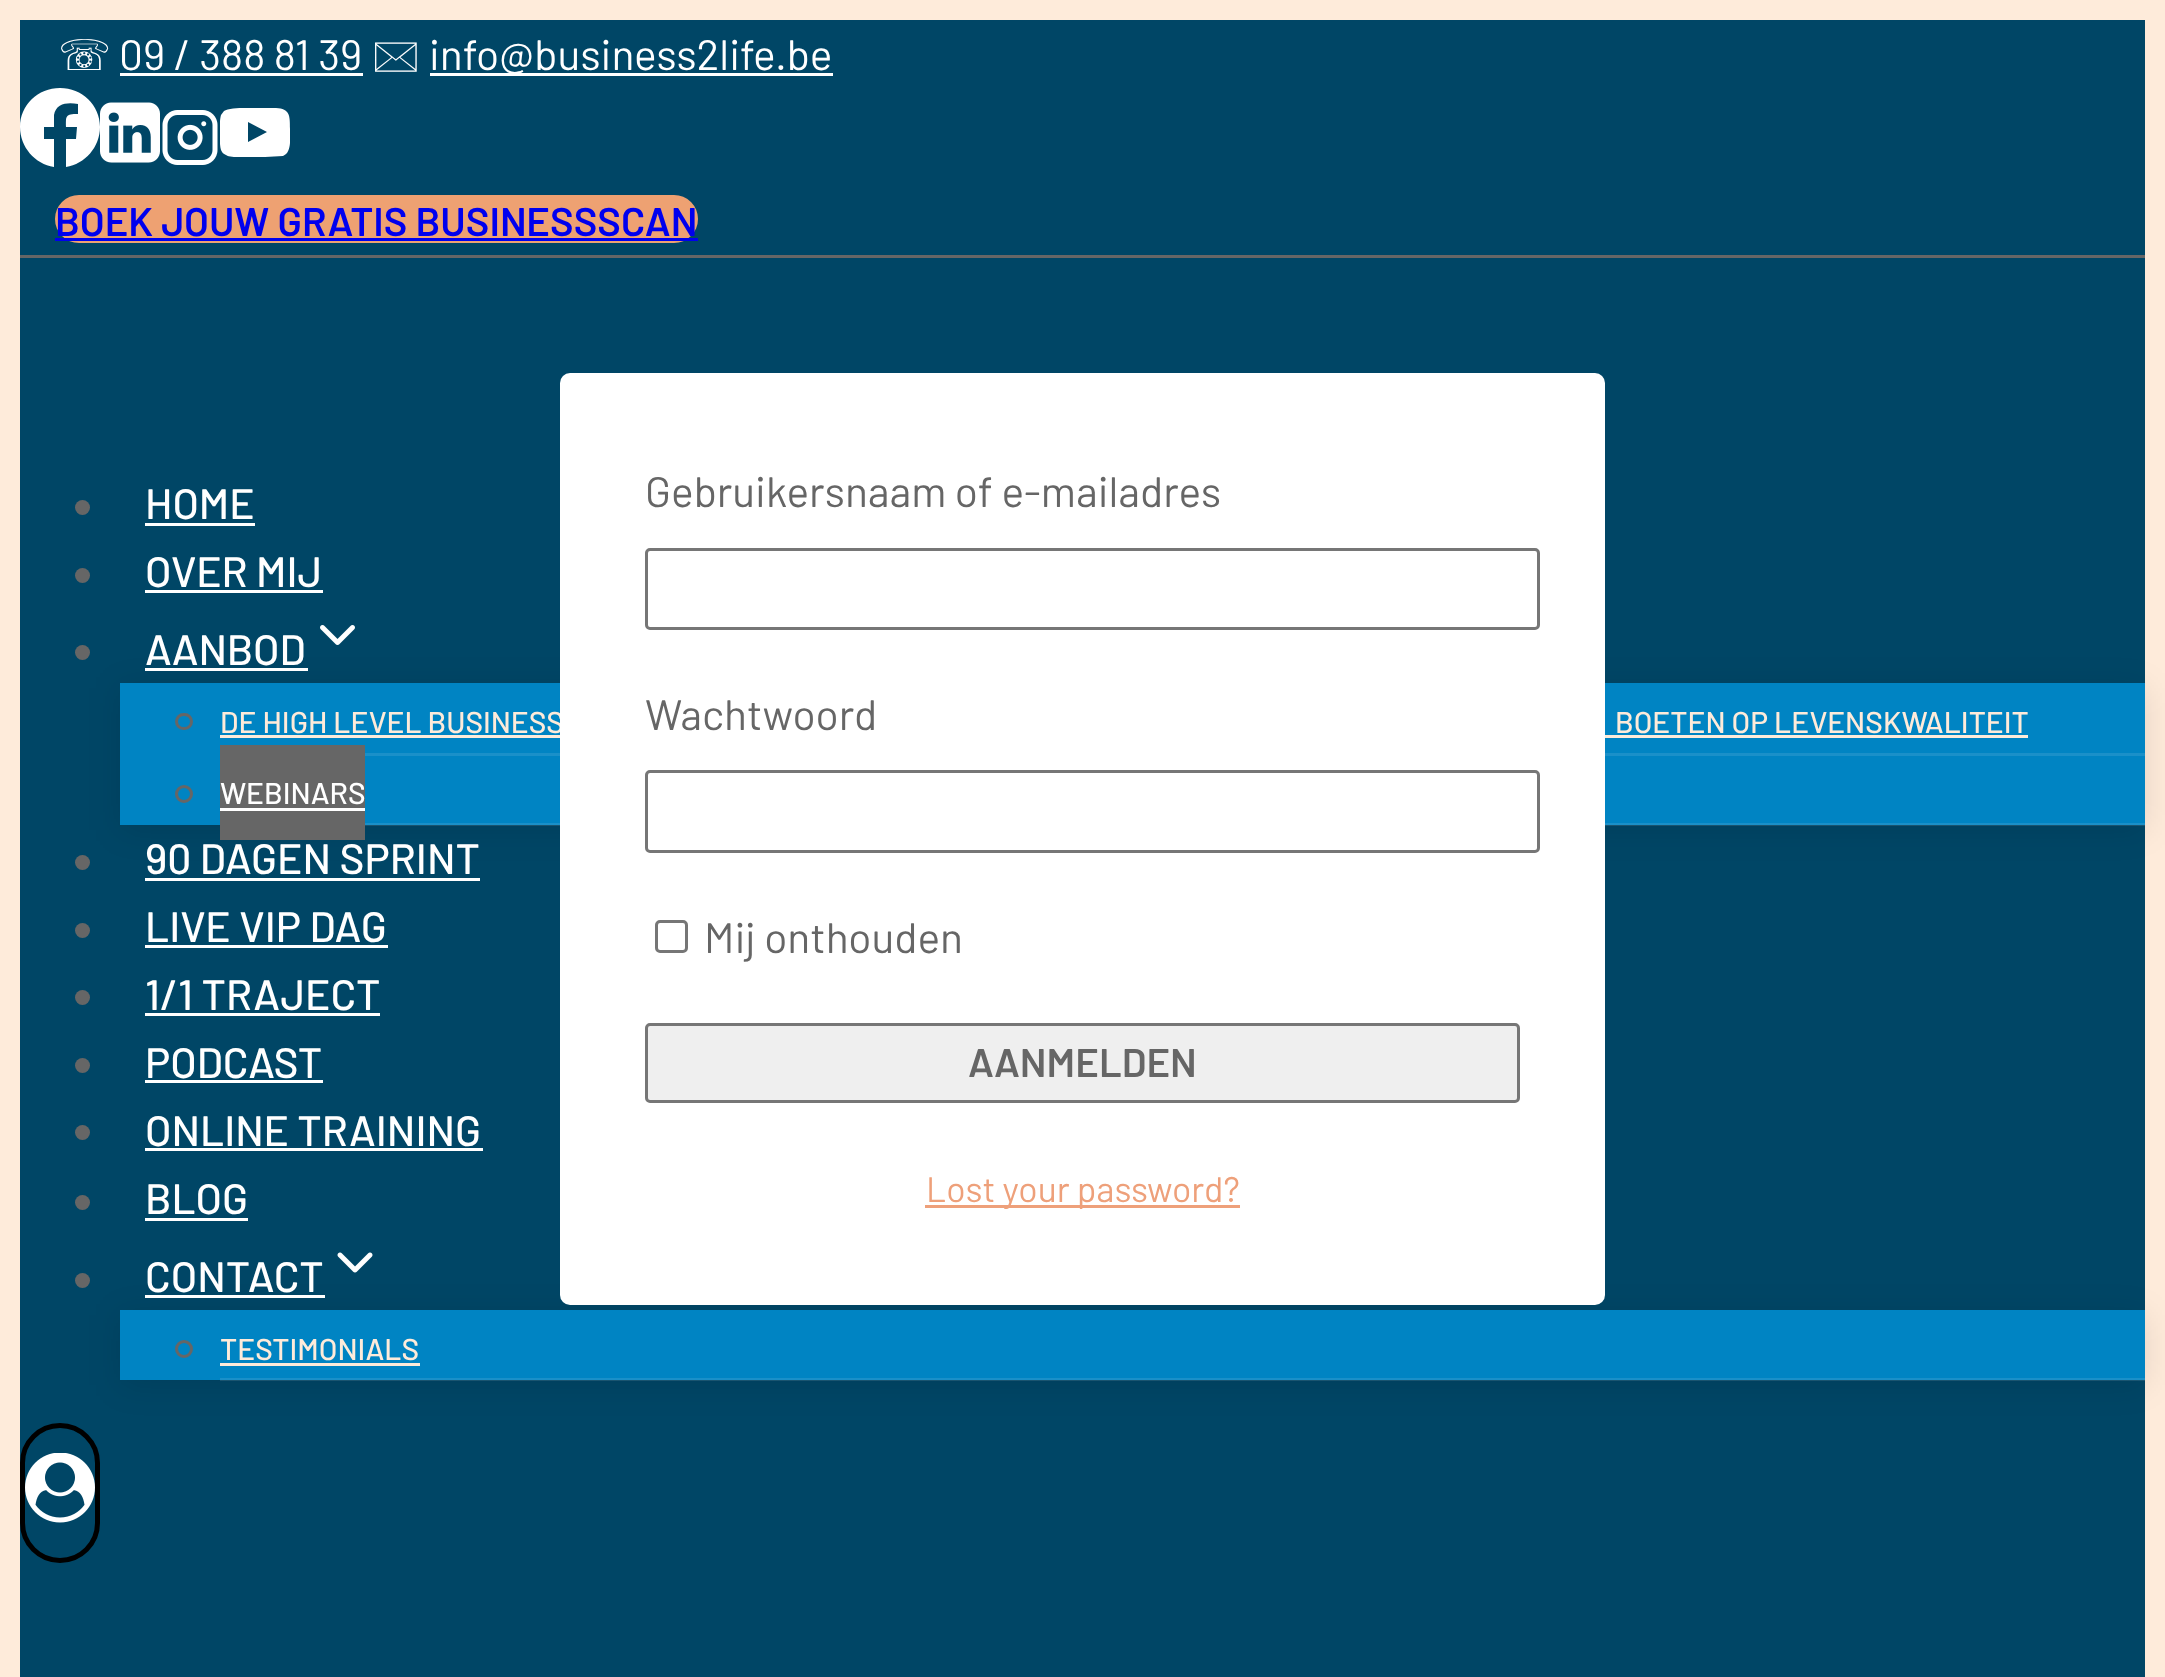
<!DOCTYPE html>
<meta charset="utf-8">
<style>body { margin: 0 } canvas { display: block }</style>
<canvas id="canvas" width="2165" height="1677"></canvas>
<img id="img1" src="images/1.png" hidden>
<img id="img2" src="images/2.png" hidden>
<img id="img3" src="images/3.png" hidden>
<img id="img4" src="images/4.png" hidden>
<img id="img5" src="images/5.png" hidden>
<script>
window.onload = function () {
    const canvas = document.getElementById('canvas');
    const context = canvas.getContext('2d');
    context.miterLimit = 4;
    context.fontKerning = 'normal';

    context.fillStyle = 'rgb(254, 235, 218)';
    context.fillRect(0, 0, 2165, 1677);
    context.fillStyle = 'rgb(0, 70, 102)';
    context.fillRect(20, 20, 2125, 1657);
    context.fillStyle = 'rgb(102, 102, 102)';
    context.fillRect(20, 255, 2125, 3);
    context.fillStyle = 'rgb(255, 255, 255)';
    context.fillRect(120, 73, 243, 3);
    context.fillRect(430, 73, 403, 3);
    context.beginPath();
    context.moveTo(100, 127);
    context.bezierCurveTo(100, 105, 82, 88, 60, 88);
    context.bezierCurveTo(38, 88, 20, 105, 20, 127);
    context.bezierCurveTo(20, 147, 35, 164, 54, 167);
    context.lineTo(54, 139);
    context.lineTo(44, 139);
    context.lineTo(44, 127);
    context.lineTo(54, 127);
    context.lineTo(54, 115);
    context.bezierCurveTo(56, 103, 68, 102, 78, 104);
    context.lineTo(78, 114);
    context.bezierCurveTo(65, 114, 66, 116, 66, 127);
    context.lineTo(77, 127);
    context.lineTo(76, 139);
    context.lineTo(66, 139);
    context.lineTo(66, 167);
    context.bezierCurveTo(85, 164, 100, 147, 100, 127);
    context.closePath();
    context.fill();
    context.drawImage(document.getElementById('img1'), 100, 102, 60, 61);
    context.drawImage(document.getElementById('img2'), 162, 110, 56, 55);
    context.save();
    context.beginPath();
    context.rect(220, 98, 70, 70);
    context.clip();
    context.beginPath();
    context.moveTo(248, 142);
    context.lineTo(267, 132);
    context.lineTo(248, 122);
    context.closePath();
    context.moveTo(255, 108);
    context.lineTo(276, 108);
    context.bezierCurveTo(290, 109, 290, 115, 290, 129);
    context.bezierCurveTo(290, 137, 292, 153, 283, 156);
    context.lineTo(265, 157);
    context.lineTo(239, 157);
    context.bezierCurveTo(235, 157, 229, 157, 226, 155);
    context.bezierCurveTo(223, 154, 222, 152, 221, 150);
    context.bezierCurveTo(219, 143, 219, 122, 221, 115);
    context.bezierCurveTo(222, 114, 223, 112, 224, 111);
    context.bezierCurveTo(229, 107, 250, 108, 255, 108);
    context.closePath();
    context.fill();
    context.restore();
    context.fillStyle = 'rgb(238, 161, 114)';
    context.beginPath();
    context.roundRect(55, 195, 643, 48, 24);
    context.fill();
    context.fillStyle = 'rgb(0, 0, 238)';
    context.fillRect(55, 238, 643, 3);
    context.fillStyle = 'rgb(102, 102, 102)';
    context.beginPath();
    context.arc(82.5, 507.5, 7.5, 0, 2 * Math.PI);
    context.fill();
    context.fillStyle = 'rgb(255, 255, 255)';
    context.fillRect(145, 523, 110, 3);
    context.fillStyle = 'rgb(102, 102, 102)';
    context.beginPath();
    context.arc(82.5, 575.5, 7.5, 0, 2 * Math.PI);
    context.fill();
    context.fillStyle = 'rgb(255, 255, 255)';
    context.fillRect(145, 590, 178, 3);
    context.fillStyle = 'rgba(0, 0, 0, 0.1)';
    context.filter = 'blur(16px)';
    context.beginPath();
    context.rect(120, 688, 2025, 142);
    context.fill();
    context.filter = 'none';
    context.fillStyle = 'rgb(102, 102, 102)';
    context.beginPath();
    context.arc(82.5, 652.5, 7.5, 0, 2 * Math.PI);
    context.fill();
    context.fillStyle = 'rgb(255, 255, 255)';
    context.fillRect(145, 668, 163, 3);
    context.drawImage(document.getElementById('img3'), 320, 625, 35, 20);
    context.fillStyle = 'rgb(0, 132, 195)';
    context.fillRect(120, 683, 2025, 142);
    context.fillStyle = 'rgb(26, 144, 201)';
    context.fillRect(365, 753, 1780, 3);
    context.beginPath();
    context.roundRect(176.5, 714.5, 15, 14, 7);
    context.strokeStyle = 'rgb(102, 102, 102)';
    context.lineWidth = 3;
    context.stroke();
    context.fillStyle = 'rgb(254, 235, 218)';
    context.fillRect(220, 735, 1808, 3);
    context.fillStyle = 'rgba(255, 255, 255, 0.1)';
    context.fillRect(365, 823, 1780, 3);
    context.beginPath();
    context.arc(184, 794, 7.5, 0, 2 * Math.PI);
    context.stroke();
    context.fillStyle = 'rgb(102, 102, 102)';
    context.fillRect(220, 745, 145, 95);
    context.fillStyle = 'rgb(255, 255, 255)';
    context.fillRect(220, 808, 145, 3);
    context.fillStyle = 'rgb(102, 102, 102)';
    context.beginPath();
    context.arc(82.5, 862.5, 7.5, 0, 2 * Math.PI);
    context.fill();
    context.fillStyle = 'rgb(255, 255, 255)';
    context.fillRect(145, 878, 335, 3);
    context.fillStyle = 'rgb(102, 102, 102)';
    context.beginPath();
    context.arc(82.5, 930.5, 7.5, 0, 2 * Math.PI);
    context.fill();
    context.fillStyle = 'rgb(255, 255, 255)';
    context.fillRect(145, 945, 243, 3);
    context.fillStyle = 'rgb(102, 102, 102)';
    context.beginPath();
    context.arc(82.5, 997.5, 7.5, 0, 2 * Math.PI);
    context.fill();
    context.fillStyle = 'rgb(255, 255, 255)';
    context.fillRect(145, 1013, 235, 3);
    context.fillStyle = 'rgb(102, 102, 102)';
    context.beginPath();
    context.arc(82.5, 1065.5, 7.5, 0, 2 * Math.PI);
    context.fill();
    context.fillStyle = 'rgb(255, 255, 255)';
    context.fillRect(145, 1080, 178, 3);
    context.fillStyle = 'rgb(102, 102, 102)';
    context.beginPath();
    context.arc(82.5, 1132.5, 7.5, 0, 2 * Math.PI);
    context.fill();
    context.fillStyle = 'rgb(255, 255, 255)';
    context.fillRect(145, 1148, 338, 3);
    context.fillStyle = 'rgb(102, 102, 102)';
    context.beginPath();
    context.arc(82.5, 1202.5, 7.5, 0, 2 * Math.PI);
    context.fill();
    context.fillStyle = 'rgb(255, 255, 255)';
    context.fillRect(145, 1218, 103, 3);
    context.fillStyle = 'rgba(0, 0, 0, 0.1)';
    context.filter = 'blur(16px)';
    context.beginPath();
    context.rect(120, 1315, 2025, 70);
    context.fill();
    context.filter = 'none';
    context.fillStyle = 'rgb(102, 102, 102)';
    context.beginPath();
    context.arc(82.5, 1280.5, 7.5, 0, 2 * Math.PI);
    context.fill();
    context.fillStyle = 'rgb(255, 255, 255)';
    context.fillRect(145, 1295, 180, 3);
    context.drawImage(document.getElementById('img4'), 337, 1252, 36, 21);
    context.fillStyle = 'rgb(0, 132, 195)';
    context.fillRect(120, 1310, 2025, 70);
    context.fillStyle = 'rgba(255, 255, 255, 0.1)';
    context.fillRect(220, 1378, 1925, 3);
    context.beginPath();
    context.arc(184, 1349, 7.5, 0, 2 * Math.PI);
    context.stroke();
    context.fillStyle = 'rgb(254, 235, 218)';
    context.fillRect(220, 1363, 200, 3);
    context.beginPath();
    context.roundRect(22.5, 1425.5, 75, 135, 37.5);
    context.strokeStyle = 'rgb(0, 0, 0)';
    context.lineWidth = 5;
    context.stroke();
    context.drawImage(document.getElementById('img5'), 25, 1453, 70, 70);
    context.font = '42.5px DejaVu Sans';
    context.fillStyle = 'rgb(255, 255, 255)';
    context.fillText('☏', 58, 70);
    context.font = '42.5px Barlow';
    context.fillText('09 / 388 81 39', 119, 70);
    context.font = '42.5px "Noto Sans Symbols 2"';
    context.fillText('🖂', 371, 70);
    context.font = '42.5px Barlow';
    context.fillText('info@business2life.be', 429, 70);
    context.font = '600 40px Barlow';
    context.fillStyle = 'rgb(0, 0, 238)';
    context.fillText('BOEK JOUW GRATIS BUSINESSSCAN', 55, 236);
    context.font = '500 42.5px Barlow';
    context.fillStyle = 'rgb(255, 255, 255)';
    context.fillText('HOME', 145, 519);
    context.fillText('OVER MIJ', 145, 587);
    context.fillText('AANBOD', 145, 665);
    context.font = '500 30px Barlow';
    context.fillStyle = 'rgb(254, 235, 218)';
    context.fillText('DE HIGH LEVEL BUSINESS', 220, 733);
    context.fillText('BOETEN OP LEVENSKWALITEIT', 1615, 733);
    context.fillStyle = 'rgb(255, 255, 255)';
    context.fillText('WEBINARS', 220, 804);
    context.font = '500 42.5px Barlow';
    context.fillText('90 DAGEN SPRINT', 145, 874);
    context.fillText('LIVE VIP DAG', 145, 942);
    context.fillText('1/1 TRAJECT', 145, 1010);
    context.fillText('PODCAST', 145, 1078);
    context.fillText('ONLINE TRAINING', 145, 1146);
    context.fillText('BLOG', 145, 1214);
    context.fillText('CONTACT', 145, 1292);
    context.font = '500 30px Barlow';
    context.fillStyle = 'rgb(254, 235, 218)';
    context.fillText('TESTIMONIALS', 220, 1360);
    context.fillStyle = 'rgb(255, 255, 255)';
    context.beginPath();
    context.roundRect(560, 373, 1045, 932, 10);
    context.fill();
    context.font = '42.5px Barlow';
    context.fillStyle = 'rgb(102, 102, 102)';
    context.fillText('Gebruikersnaam of e-mailadres', 645, 507);
    context.beginPath();
    context.roundRect(646.5, 549.5, 892, 79, 3.5);
    context.strokeStyle = 'rgb(118, 118, 118)';
    context.lineWidth = 3;
    context.stroke();
    context.fillText('Wachtwoord', 645, 730);
    context.beginPath();
    context.roundRect(646.5, 771.5, 892, 80, 3.5);
    context.stroke();
    context.beginPath();
    context.roundRect(656.5, 921.5, 30, 30, 3.5);
    context.stroke();
    context.fillText('Mij onthouden', 704, 953);
    context.fillStyle = 'rgb(239, 239, 239)';
    context.beginPath();
    context.roundRect(646.5, 1024.5, 872, 77, 3.5);
    context.fill();
    context.stroke();
    context.font = '600 40px Barlow';
    context.fillStyle = 'rgb(102, 102, 102)';
    context.fillText('AANMELDEN', 968, 1077);
    context.fillStyle = 'rgb(238, 160, 122)';
    context.fillRect(925, 1205, 315, 3);
    context.font = '35.5px Barlow';
    context.fillText('Lost your password?', 926, 1202);
};
</script>
